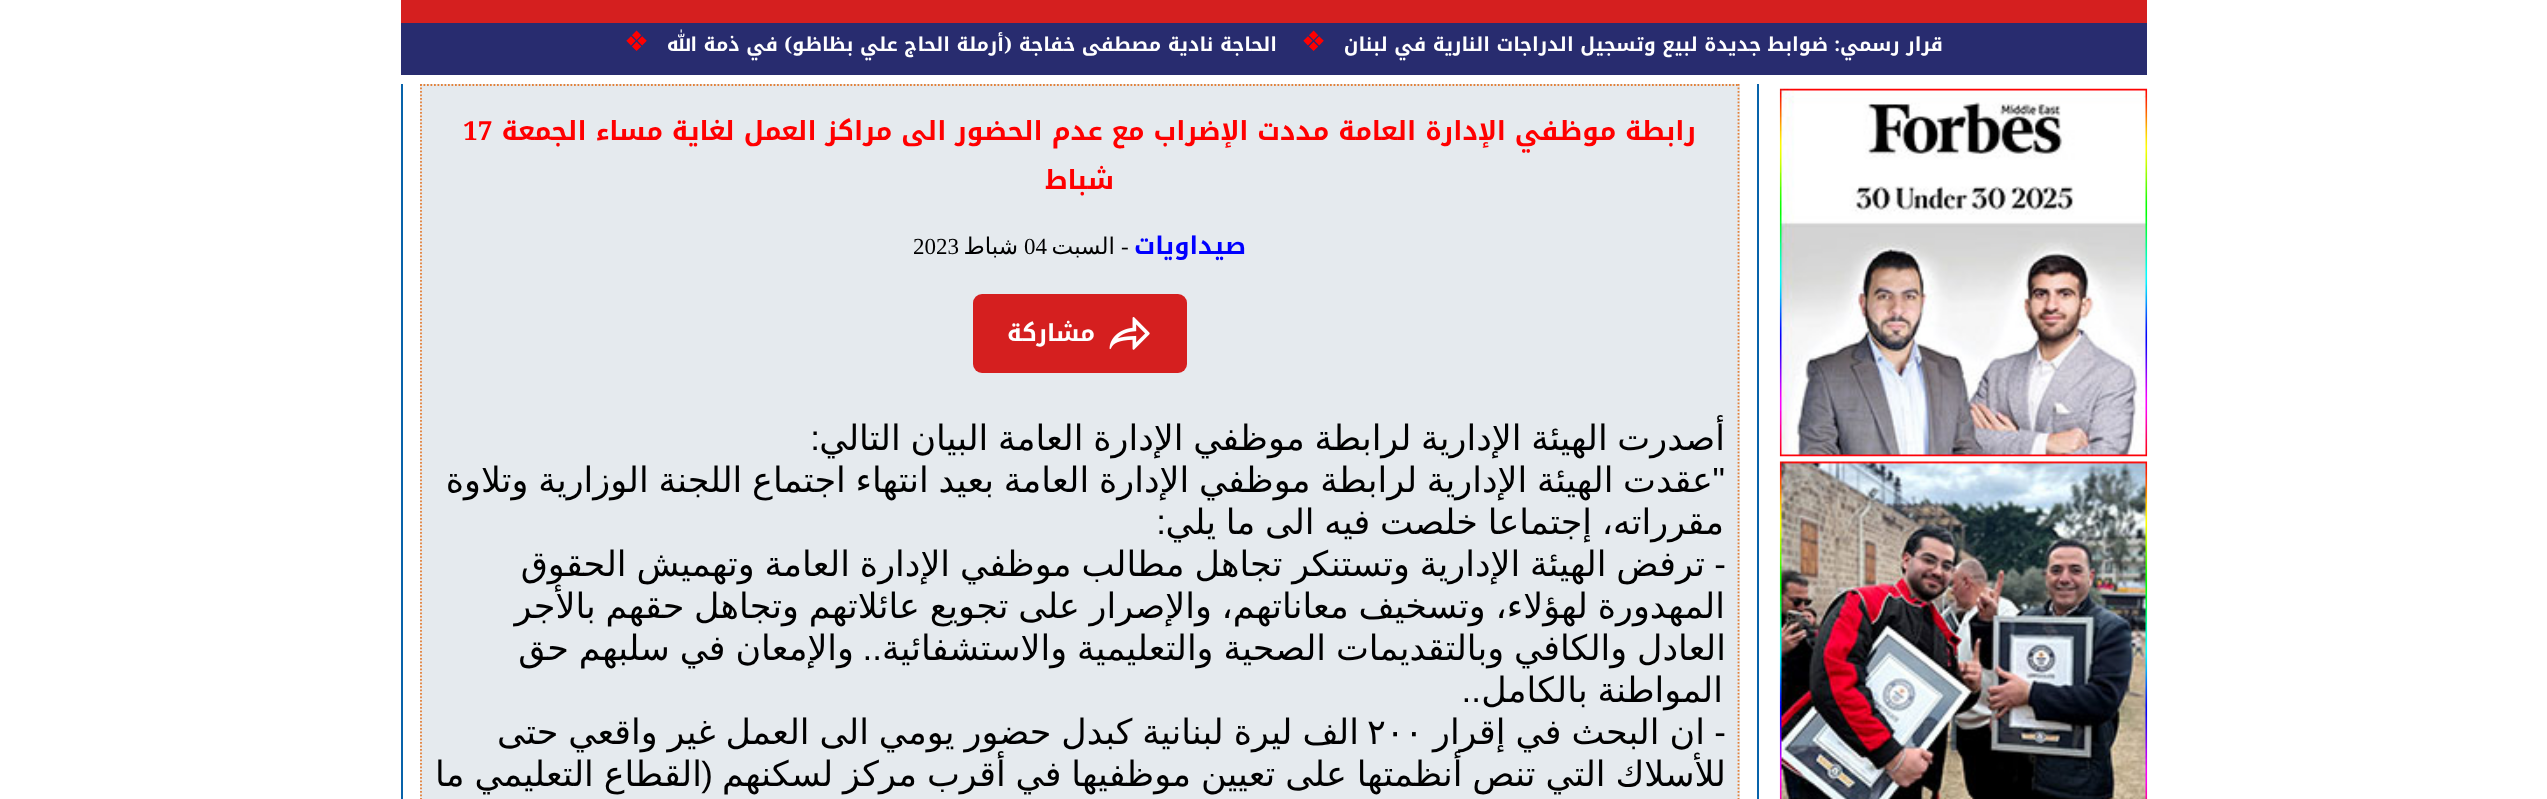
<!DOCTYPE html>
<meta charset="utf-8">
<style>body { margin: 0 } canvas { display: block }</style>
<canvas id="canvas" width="2547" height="799"></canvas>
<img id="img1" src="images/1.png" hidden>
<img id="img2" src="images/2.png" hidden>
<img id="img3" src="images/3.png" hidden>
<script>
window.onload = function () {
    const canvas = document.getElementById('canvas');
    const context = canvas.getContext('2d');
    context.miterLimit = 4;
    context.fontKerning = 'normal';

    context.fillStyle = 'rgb(255, 255, 255)';
    context.fillRect(0, 0, 2547, 799);
    context.fillStyle = 'rgb(213, 31, 31)';
    context.fillRect(401, 0, 1746, 23);
    context.fillStyle = 'rgb(40, 44, 111)';
    context.fillRect(401, 23, 1746, 52);
    context.drawImage(document.getElementById('img1'), 1779, 88, 369, 369);
    context.drawImage(document.getElementById('img2'), 1779, 461, 369, 338);
    context.fillStyle = 'rgb(8, 99, 170)';
    context.fillRect(1757, 84, 2, 715);
    context.fillRect(401, 84, 2, 715);
    context.fillStyle = 'rgb(229, 234, 238)';
    context.fillRect(420, 84, 1320, 715);
    context.beginPath();
    context.moveTo(420, 85);
    context.lineTo(1739.5, 85);
    context.strokeStyle = 'rgb(228, 129, 57)';
    context.lineWidth = 1.8;
    context.setLineDash([1.75, 1.75]);
    context.stroke();
    context.beginPath();
    context.moveTo(1738.5, 84);
    context.lineTo(1738.5, 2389);
    context.stroke();
    context.beginPath();
    context.moveTo(421, 84);
    context.lineTo(421, 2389);
    context.stroke();
    context.fillStyle = 'rgb(213, 31, 31)';
    context.beginPath();
    context.roundRect(973, 294, 214, 79, 9);
    context.fill();
    context.drawImage(document.getElementById('img3'), 1109, 317, 41, 33);
    context.direction = 'rtl';
    context.font = 'bold 19.25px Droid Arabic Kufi';
    context.fillStyle = 'rgb(255, 255, 255)';
    context.fillText('قرار رسمي', 1943, 51);
    context.font = 'bold 19.25px Noto Serif';
    context.fillText(':', 1840, 51);
    context.font = 'bold 19.25px Droid Arabic Kufi';
    context.fillText('ضوابط جديدة لبيع وتسجيل الدراجات النارية في لبنان', 1828, 51);
    context.direction = 'ltr';
    context.font = '28px DejaVu Sans';
    context.fillStyle = 'rgb(255, 0, 0)';
    context.fillText('❖', 1301, 51);
    context.direction = 'rtl';
    context.font = 'bold 19.25px Droid Arabic Kufi';
    context.fillStyle = 'rgb(255, 255, 255)';
    context.fillText('الحاجة نادية مصطفى خفاجة', 1277, 51);
    context.font = 'bold 19.25px Noto Serif';
    context.fillText('(', 1012, 51);
    context.font = 'bold 19.25px Droid Arabic Kufi';
    context.fillText('أرملة الحاج علي بظاظو', 1004, 51);
    context.font = 'bold 19.25px Noto Serif';
    context.fillText(')', 792, 51);
    context.font = 'bold 19.25px Droid Arabic Kufi';
    context.fillText('في ذمة الله', 778, 51);
    context.direction = 'ltr';
    context.font = '28px DejaVu Sans';
    context.fillStyle = 'rgb(255, 0, 0)';
    context.fillText('❖', 624, 51);
    context.direction = 'rtl';
    context.font = 'bold 26.25px Droid Arabic Kufi';
    context.fillText('رابطة موظفي الإدارة العامة مددت الإضراب مع عدم الحضور الى مراكز العمل لغاية مساء الجمعة', 1696, 140);
    context.direction = 'ltr';
    context.font = 'bold 26.25px Noto Serif';
    context.fillText('17', 463, 140);
    context.direction = 'rtl';
    context.font = 'bold 26.25px Droid Arabic Kufi';
    context.fillText('شباط', 1114, 189);
    context.font = 'bold 24.5px Droid Arabic Kufi';
    context.fillStyle = 'rgb(0, 0, 255)';
    context.fillText('صيداويات', 1246, 254);
    context.direction = 'ltr';
    context.font = '23px Liberation Serif';
    context.fillStyle = 'rgb(0, 0, 0)';
    context.fillText('-', 1121, 254);
    context.direction = 'rtl';
    context.font = '23px DejaVu Sans';
    context.fillText('السبت', 1115, 254);
    context.direction = 'ltr';
    context.font = '23px Liberation Serif';
    context.fillText('04', 1024, 254);
    context.direction = 'rtl';
    context.font = '23px DejaVu Sans';
    context.fillText('شباط', 1018, 254);
    context.direction = 'ltr';
    context.font = '23px Liberation Serif';
    context.fillText('2023', 913, 254);
    context.direction = 'rtl';
    context.font = 'bold 23.5px Droid Arabic Kufi';
    context.fillStyle = 'rgb(255, 255, 255)';
    context.fillText('مشاركة', 1095, 341);
    context.wordSpacing = '-1.4px';
    context.font = '35px DejaVu Sans';
    context.fillStyle = 'rgb(0, 0, 0)';
    context.fillText('أصدرت الهيئة الإدارية لرابطة موظفي الإدارة العامة البيان التالي', 1725, 450);
    context.wordSpacing = '0px';
    context.font = '35px Liberation Sans';
    context.fillText(':', 820, 450);
    context.wordSpacing = '-1.4px';
    context.font = '35px DejaVu Sans';
    context.fillText('عقدت الهيئة الإدارية لرابطة موظفي الإدارة العامة بعيد انتهاء اجتماع اللجنة الوزارية وتلاوة', 1713, 492);
    context.wordSpacing = '0px';
    context.font = '35px Liberation Sans';
    context.fillText('"', 1725, 492);
    context.wordSpacing = '-1.4px';
    context.font = '35px DejaVu Sans';
    context.fillText('مقرراته، إجتماعا خلصت فيه الى ما يلي', 1724, 534);
    context.wordSpacing = '0px';
    context.font = '35px Liberation Sans';
    context.fillText(':', 1166, 534);
    context.wordSpacing = '-1.25px';
    context.font = '35px DejaVu Sans';
    context.fillText('ترفض الهيئة الإدارية وتستنكر تجاهل مطالب موظفي الإدارة العامة وتهميش الحقوق', 1705, 576);
    context.wordSpacing = '0px';
    context.font = '35px Liberation Sans';
    context.fillText('-', 1726, 576);
    context.wordSpacing = '-1.4px';
    context.font = '35px DejaVu Sans';
    context.fillText('المهدورة لهؤلاء، وتسخيف معاناتهم، والإصرار على تجويع عائلاتهم وتجاهل حقهم بالأجر', 1725, 618);
    context.wordSpacing = '-1.25px';
    context.fillText('العادل والكافي وبالتقديمات الصحية والتعليمية والاستشفائية', 1726, 660);
    context.wordSpacing = '0px';
    context.font = '35px Liberation Sans';
    context.fillText('..', 882, 660);
    context.wordSpacing = '-1.25px';
    context.font = '35px DejaVu Sans';
    context.fillText('والإمعان في سلبهم حق', 854, 660);
    context.wordSpacing = '-1.4px';
    context.fillText('المواطنة بالكامل', 1723, 702);
    context.wordSpacing = '0px';
    context.font = '35px Liberation Sans';
    context.fillText('..', 1481, 702);
    context.fillText('-', 1726, 744);
    context.wordSpacing = '-1px';
    context.font = '35px DejaVu Sans';
    context.fillText('ان البحث في إقرار', 1705, 744);
    context.wordSpacing = '-1.25px';
    context.fillText('الف ليرة لبنانية كبدل حضور يومي الى العمل غير واقعي حتى', 1359, 744);
    context.wordSpacing = '0px';
    context.direction = 'ltr';
    context.fillText('٢٠٠', 1367, 744);
    context.wordSpacing = '-1.25px';
    context.direction = 'rtl';
    context.fillText('للأسلاك التي تنص أنظمتها على تعيين موظفيها في أقرب مركز لسكنهم', 1726, 786);
    context.wordSpacing = '0px';
    context.font = '35px Liberation Sans';
    context.fillText('(', 713, 786);
    context.wordSpacing = '-1.25px';
    context.font = '35px DejaVu Sans';
    context.fillText('القطاع التعليمي ما', 702, 786);
};
</script>
